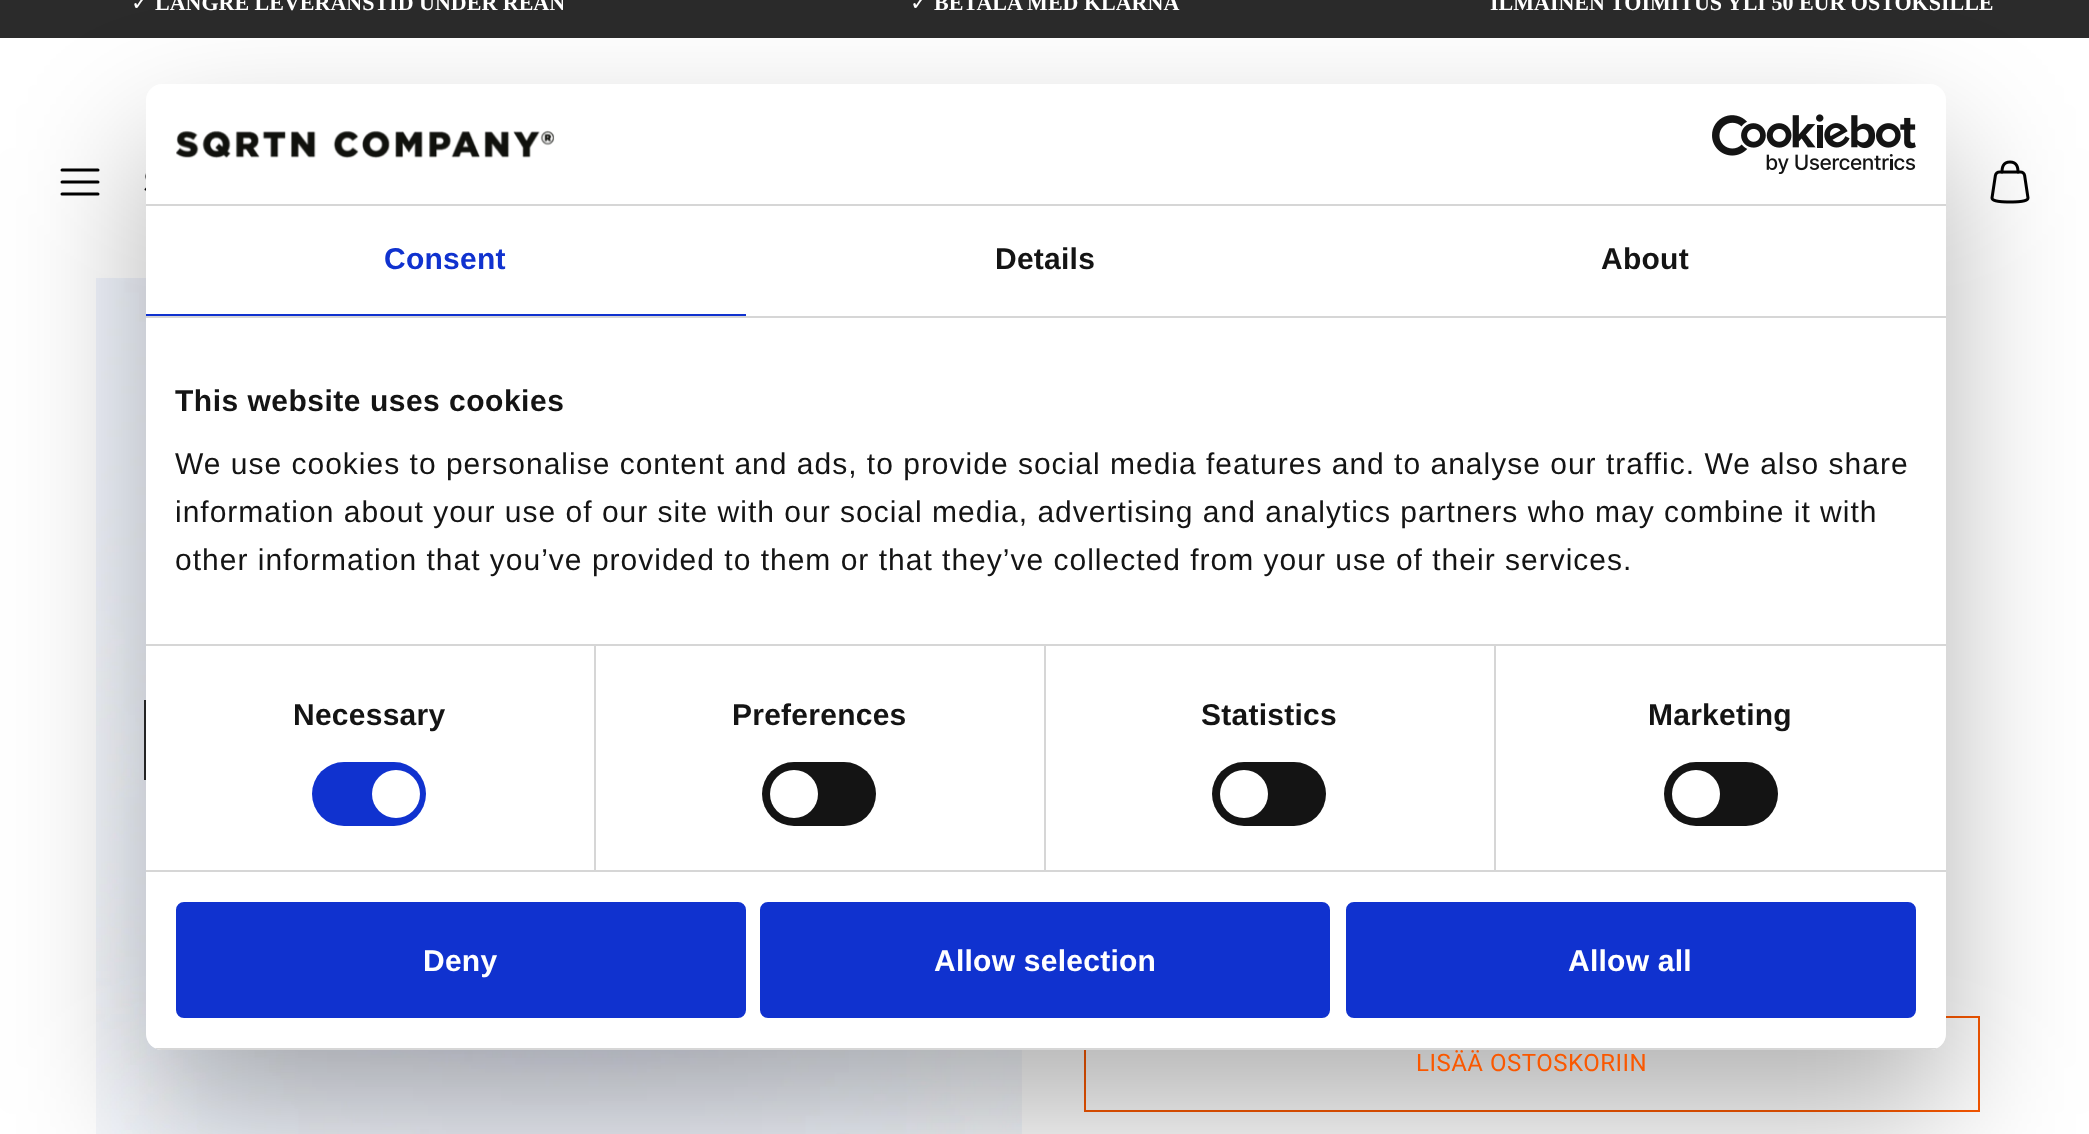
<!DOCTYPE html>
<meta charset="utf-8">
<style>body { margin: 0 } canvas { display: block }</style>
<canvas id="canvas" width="2089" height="1134"></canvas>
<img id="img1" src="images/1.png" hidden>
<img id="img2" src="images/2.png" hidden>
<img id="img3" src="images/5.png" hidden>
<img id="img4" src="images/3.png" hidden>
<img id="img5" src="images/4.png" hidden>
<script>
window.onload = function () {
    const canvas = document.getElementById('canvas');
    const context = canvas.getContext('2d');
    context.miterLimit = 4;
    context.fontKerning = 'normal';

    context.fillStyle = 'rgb(43, 43, 43)';
    context.fillRect(0, 0, 2089, 1134);
    context.fillStyle = 'rgb(255, 255, 255)';
    context.fillRect(0, 38, 2089, 48);
    context.fillRect(0, 86, 2089, 1048);
    context.beginPath();
    context.moveTo(62, 182);
    context.lineTo(98, 182);
    context.moveTo(62, 170);
    context.lineTo(98, 170);
    context.moveTo(62, 194);
    context.lineTo(98, 194);
    context.strokeStyle = 'rgb(0, 0, 0)';
    context.lineWidth = 3;
    context.lineCap = 'round';
    context.lineJoin = 'round';
    context.stroke();
    context.drawImage(document.getElementById('img1'), 144, 173, 2, 18);
    context.drawImage(document.getElementById('img2'), 1990, 160, 40, 44);
    context.drawImage(document.getElementById('img3'), 96, 278, 926, 856);
    context.fillStyle = 'rgb(43, 43, 43)';
    context.fillRect(144, 700, 2, 80);
    context.strokeStyle = 'rgb(250, 88, 0)';
    context.lineWidth = 2;
    context.lineJoin = 'miter';
    context.strokeRect(1085, 1017, 894, 94);
    context.fillStyle = 'rgba(0, 0, 0, 0.3)';
    context.filter = 'blur(68px)';
    context.beginPath();
    context.roundRect(146, 148, 1800, 966, 16);
    context.fill();
    context.filter = 'none';
    context.fillStyle = 'rgb(255, 255, 255)';
    context.beginPath();
    context.roundRect(146, 84, 1800, 966, 16);
    context.fill();
    context.fillStyle = 'rgb(214, 214, 214)';
    context.fillRect(146, 204, 1800, 2);
    context.drawImage(document.getElementById('img4'), 176, 130, 379, 29);
    context.drawImage(document.getElementById('img5'), 1712, 114, 204, 60);
    context.fillRect(146, 316, 1800, 2);
    context.fillStyle = 'rgb(16, 50, 207)';
    context.fillRect(146, 314, 600, 2);
    context.fillStyle = 'rgb(214, 214, 214)';
    context.fillRect(146, 644, 1800, 2);
    context.fillRect(146, 870, 1800, 2);
    context.fillRect(594, 646, 2, 224);
    context.fillStyle = 'rgb(16, 50, 207)';
    context.beginPath();
    context.roundRect(312, 762, 114, 64, 32);
    context.fill();
    context.fillStyle = 'rgb(255, 255, 255)';
    context.beginPath();
    context.arc(396, 794, 24, 0, 2 * Math.PI);
    context.fill();
    context.fillStyle = 'rgb(214, 214, 214)';
    context.fillRect(1044, 646, 2, 224);
    context.fillStyle = 'rgb(20, 20, 20)';
    context.beginPath();
    context.roundRect(762, 762, 114, 64, 32);
    context.fill();
    context.fillStyle = 'rgb(255, 255, 255)';
    context.beginPath();
    context.arc(794, 794, 24, 0, 2 * Math.PI);
    context.fill();
    context.fillStyle = 'rgb(214, 214, 214)';
    context.fillRect(1494, 646, 2, 224);
    context.fillStyle = 'rgb(20, 20, 20)';
    context.beginPath();
    context.roundRect(1212, 762, 114, 64, 32);
    context.fill();
    context.fillStyle = 'rgb(255, 255, 255)';
    context.beginPath();
    context.arc(1244, 794, 24, 0, 2 * Math.PI);
    context.fill();
    context.fillStyle = 'rgb(20, 20, 20)';
    context.beginPath();
    context.roundRect(1664, 762, 114, 64, 32);
    context.fill();
    context.fillStyle = 'rgb(255, 255, 255)';
    context.beginPath();
    context.arc(1696, 794, 24, 0, 2 * Math.PI);
    context.fill();
    context.save();
    context.beginPath();
    context.roundRect(146, 84, 1800, 966, 16);
    context.clip();
    context.fillStyle = 'rgb(214, 214, 214)';
    context.fillRect(146, 1048, 1800, 2);
    context.restore();
    context.fillStyle = 'rgb(16, 50, 207)';
    context.beginPath();
    context.roundRect(178, 904, 566, 112, 6);
    context.fill();
    context.strokeStyle = 'rgb(16, 50, 207)';
    context.lineWidth = 4;
    context.stroke();
    context.beginPath();
    context.roundRect(762, 904, 566, 112, 6);
    context.fill();
    context.stroke();
    context.beginPath();
    context.roundRect(1348, 904, 566, 112, 6);
    context.fill();
    context.stroke();
    context.font = '22px DejaVu Sans';
    context.fillStyle = 'rgb(255, 255, 255)';
    context.fillText('✓', 131, 10);
    context.font = 'bold 22px Liberation Serif';
    context.fillText('LÄNGRE LEVERANSTID UNDER REAN', 155, 10);
    context.font = '22px DejaVu Sans';
    context.fillText('✓', 910, 10);
    context.font = 'bold 22px Liberation Serif';
    context.fillText('BETALA MED KLARNA', 934, 10);
    context.fillText('ILMAINEN TOIMITUS YLI 50 EUR OSTOKSILLE', 1490, 10);
    context.letterSpacing = '0.25px';
    context.font = 'bold 30px Liberation Sans';
    context.fillStyle = 'rgb(16, 50, 207)';
    context.fillText('Consent', 384, 269);
    context.fillStyle = 'rgb(20, 20, 20)';
    context.fillText('Details', 995, 269);
    context.fillText('About', 1601, 269);
    context.letterSpacing = '0.5px';
    context.fillText('This website uses cookies', 175, 411);
    context.letterSpacing = '1px';
    context.font = '30px Liberation Sans';
    context.fillText('We use cookies to personalise content and ads, to provide social media features and to analyse our traffic. We also share', 175, 474);
    context.fillText('information about your use of our site with our social media, advertising and analytics partners who may combine it with', 175, 522);
    context.fillText('other information that you’ve provided to them or that they’ve collected from your use of their services.', 175, 570);
    context.letterSpacing = '0.25px';
    context.font = 'bold 30px Liberation Sans';
    context.fillText('Necessary', 293, 725);
    context.fillText('Preferences', 732, 725);
    context.fillText('Statistics', 1201, 725);
    context.fillText('Marketing', 1648, 725);
    context.fillStyle = 'rgb(255, 255, 255)';
    context.fillText('Deny', 423, 971);
    context.fillText('Allow selection', 934, 971);
    context.fillText('Allow all', 1568, 971);
    context.letterSpacing = '0.5px';
    context.font = '24px Roboto';
    context.fillStyle = 'rgb(250, 88, 0)';
    context.fillText('LISÄÄ OSTOSKORIIN', 1416, 1071);
};
</script>
